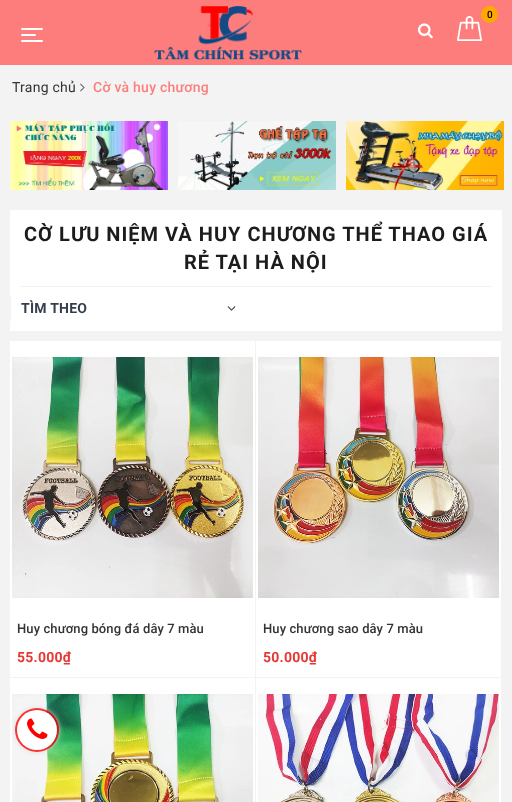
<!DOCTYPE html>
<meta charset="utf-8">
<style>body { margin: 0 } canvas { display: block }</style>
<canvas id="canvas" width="512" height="802"></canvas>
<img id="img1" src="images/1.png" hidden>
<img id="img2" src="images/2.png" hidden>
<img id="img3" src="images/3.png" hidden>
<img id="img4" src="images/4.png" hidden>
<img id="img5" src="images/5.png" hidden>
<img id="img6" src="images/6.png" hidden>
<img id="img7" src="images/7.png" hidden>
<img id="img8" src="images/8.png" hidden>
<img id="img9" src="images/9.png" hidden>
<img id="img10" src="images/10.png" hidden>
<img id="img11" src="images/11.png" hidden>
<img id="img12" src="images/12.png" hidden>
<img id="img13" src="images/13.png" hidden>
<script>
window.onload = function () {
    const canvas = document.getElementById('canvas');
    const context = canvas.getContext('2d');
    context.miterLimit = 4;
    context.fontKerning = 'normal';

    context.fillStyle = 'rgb(243, 243, 243)';
    context.fillRect(0, 0, 512, 802);
    context.fillStyle = 'rgb(253, 125, 125)';
    context.fillRect(0, 0, 512, 65);
    context.drawImage(document.getElementById('img1'), 154, 6, 148, 54);
    context.drawImage(document.getElementById('img2'), 457, 16, 25, 25);
    context.fillStyle = 'rgb(255, 168, 0)';
    context.beginPath();
    context.arc(489.5, 14.5, 8.5, 0, 2 * Math.PI);
    context.fill();
    context.drawImage(document.getElementById('img3'), 418, 23, 15, 16);
    context.fillStyle = 'rgb(255, 255, 255)';
    context.beginPath();
    context.roundRect(21, 28, 22, 2, 1);
    context.fill();
    context.beginPath();
    context.roundRect(21, 34, 15, 2, 1);
    context.fill();
    context.beginPath();
    context.roundRect(21, 40, 22, 2, 1);
    context.fill();
    context.drawImage(document.getElementById('img4'), 80, 83, 5, 9);
    context.drawImage(document.getElementById('img5'), 10, 121, 158, 69);
    context.drawImage(document.getElementById('img6'), 178, 121, 158, 69);
    context.drawImage(document.getElementById('img7'), 346, 121, 158, 69);
    context.fillRect(10, 210, 492, 121);
    context.fillStyle = 'rgb(243, 243, 243)';
    context.fillRect(20, 286, 472, 1);
    context.fillRect(10, 297, 1, 24);
    context.drawImage(document.getElementById('img8'), 227, 306, 9, 5);
    context.fillStyle = 'rgb(255, 255, 255)';
    context.fillRect(10, 341, 491, 461);
    context.fillStyle = 'rgb(243, 243, 243)';
    context.fillRect(255, 341, 1, 461);
    context.fillRect(10, 677, 492, 1);
    context.drawImage(document.getElementById('img9'), 12, 357, 241, 241);
    context.drawImage(document.getElementById('img10'), 258, 357, 241, 241);
    context.drawImage(document.getElementById('img11'), 12, 694, 241, 108);
    context.drawImage(document.getElementById('img12'), 258, 694, 241, 108);
    context.save();
    context.beginPath();
    context.moveTo(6, 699);
    context.lineTo(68, 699);
    context.lineTo(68, 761);
    context.lineTo(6, 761);
    context.closePath();
    context.moveTo(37, 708);
    context.bezierCurveTo(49, 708, 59, 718, 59, 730);
    context.bezierCurveTo(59, 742, 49, 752, 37, 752);
    context.bezierCurveTo(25, 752, 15, 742, 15, 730);
    context.bezierCurveTo(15, 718, 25, 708, 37, 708);
    context.closePath();
    context.clip('evenodd');
    context.fillStyle = 'rgb(221, 221, 221)';
    context.filter = 'blur(2.5px)';
    context.beginPath();
    context.roundRect(15, 708, 44, 44, 22);
    context.fill();
    context.filter = 'none';
    context.restore();
    context.fillStyle = 'rgba(254, 0, 0, 0.8)';
    context.beginPath();
    context.arc(37, 730, 22, 0, 2 * Math.PI);
    context.fill();
    context.fillStyle = 'rgb(255, 255, 255)';
    context.beginPath();
    context.arc(37, 730, 20, 0, 2 * Math.PI);
    context.fill();
    context.drawImage(document.getElementById('img13'), 27, 718, 21, 21);
    context.letterSpacing = '0.25px';
    context.font = '500 10px Roboto';
    context.fillStyle = 'rgb(0, 0, 0)';
    context.fillText('0', 487, 18);
    context.font = '14px Roboto';
    context.fillStyle = 'rgb(51, 51, 51)';
    context.fillText('Trang chủ', 12, 92);
    context.font = '500 14px Roboto';
    context.fillStyle = 'rgb(253, 125, 125)';
    context.fillText('Cờ và huy chương', 93, 92);
    context.letterSpacing = '1px';
    context.font = 'bold 20px Roboto';
    context.fillStyle = 'rgb(28, 28, 28)';
    context.fillText('CỜ LƯU NIỆM VÀ HUY CHƯƠNG THỂ THAO GIÁ', 24, 241);
    context.fillText('RẺ TẠI HÀ NỘI', 184, 269);
    context.letterSpacing = '0.25px';
    context.font = 'bold 14px Roboto';
    context.fillStyle = 'rgb(54, 63, 77)';
    context.fillText('TÌM THEO', 21, 313);
    context.letterSpacing = '0.1px';
    context.font = '500 13px Roboto';
    context.fillStyle = 'rgb(51, 51, 51)';
    context.fillText('Huy chương bóng đá dây 7 màu', 17, 633);
    context.letterSpacing = '0.25px';
    context.font = 'bold 14px Roboto';
    context.fillStyle = 'rgb(229, 57, 53)';
    context.fillText('55.000₫', 17, 662);
    context.letterSpacing = '0.1px';
    context.font = '500 13px Roboto';
    context.fillStyle = 'rgb(51, 51, 51)';
    context.fillText('Huy chương sao dây 7 màu', 263, 633);
    context.letterSpacing = '0.25px';
    context.font = 'bold 14px Roboto';
    context.fillStyle = 'rgb(229, 57, 53)';
    context.fillText('50.000₫', 263, 662);
};
</script>
